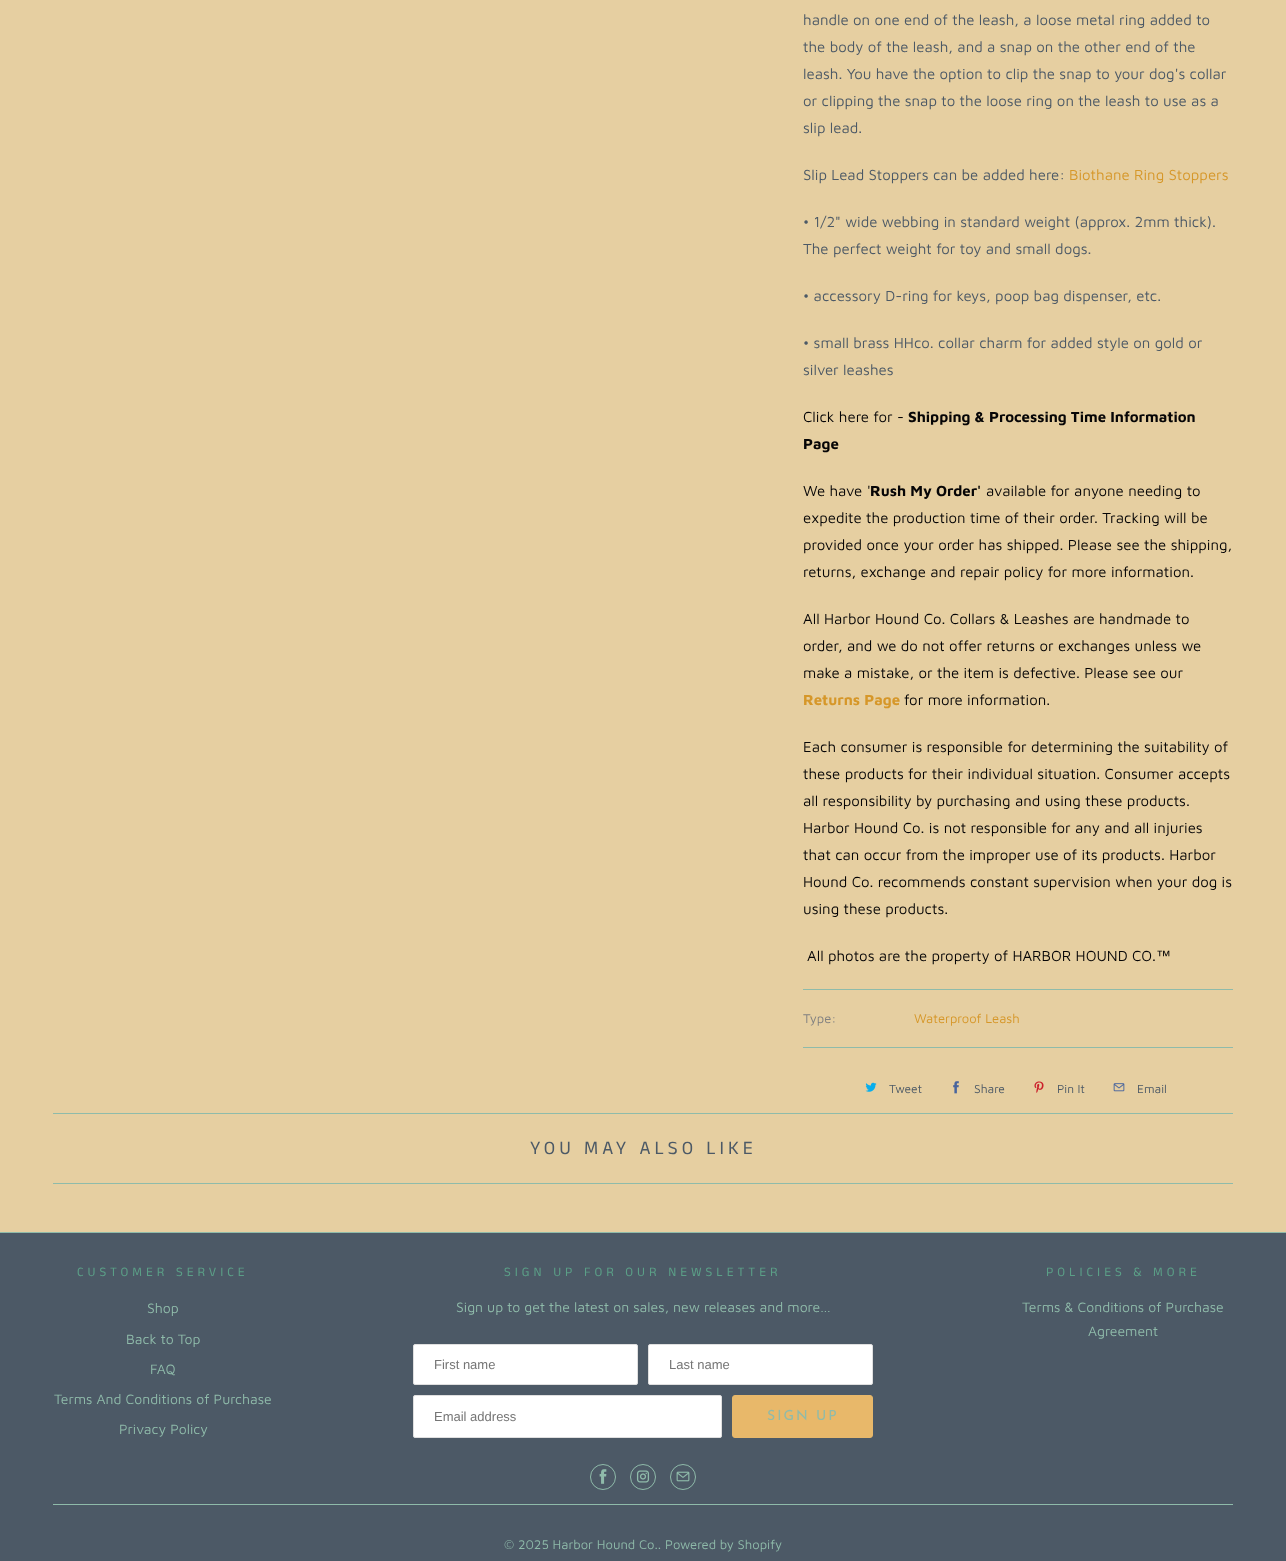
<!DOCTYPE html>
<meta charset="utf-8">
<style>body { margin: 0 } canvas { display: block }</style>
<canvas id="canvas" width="1286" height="1561"></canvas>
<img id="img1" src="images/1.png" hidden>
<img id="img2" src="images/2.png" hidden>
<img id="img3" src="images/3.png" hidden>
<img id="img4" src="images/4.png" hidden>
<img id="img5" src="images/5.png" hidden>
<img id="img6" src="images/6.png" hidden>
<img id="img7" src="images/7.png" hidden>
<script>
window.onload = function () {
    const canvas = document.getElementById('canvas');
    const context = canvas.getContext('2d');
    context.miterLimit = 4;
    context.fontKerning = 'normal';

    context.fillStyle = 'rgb(230, 207, 161)';
    context.fillRect(0, 0, 1286, 1561);
    context.fillStyle = 'rgb(143, 187, 170)';
    context.fillRect(803, 989, 430, 1);
    context.fillRect(803, 1047, 430, 1);
    context.drawImage(document.getElementById('img1'), 865, 1082, 12, 10);
    context.drawImage(document.getElementById('img2'), 953, 1081, 6, 13);
    context.drawImage(document.getElementById('img3'), 1034, 1081, 10, 12);
    context.drawImage(document.getElementById('img4'), 1113, 1083, 12, 9);
    context.fillRect(53, 1113, 1180, 1);
    context.fillRect(53, 1183, 1180, 1);
    context.fillStyle = 'rgb(76, 89, 102)';
    context.fillRect(0, 1233, 1286, 328);
    context.fillStyle = 'rgb(143, 187, 170)';
    context.fillRect(0, 1232, 1286, 1);
    context.fillStyle = 'rgb(255, 255, 255)';
    context.beginPath();
    context.roundRect(413.5, 1344.5, 224, 40, 1.5);
    context.fill();
    context.strokeStyle = 'rgb(223, 223, 223)';
    context.stroke();
    context.beginPath();
    context.roundRect(648.5, 1344.5, 224, 40, 1.5);
    context.fill();
    context.stroke();
    context.beginPath();
    context.roundRect(413.5, 1395.5, 308, 42, 1.5);
    context.fill();
    context.stroke();
    context.fillStyle = 'rgb(232, 184, 106)';
    context.beginPath();
    context.roundRect(732.5, 1395.5, 140, 42, 2.5);
    context.fill();
    context.strokeStyle = 'rgb(232, 184, 106)';
    context.stroke();
    context.beginPath();
    context.arc(603, 1477, 12.5, 0, 2 * Math.PI);
    context.strokeStyle = 'rgb(143, 187, 170)';
    context.stroke();
    context.drawImage(document.getElementById('img5'), 599, 1469, 8, 15);
    context.beginPath();
    context.arc(643, 1477, 12.5, 0, 2 * Math.PI);
    context.stroke();
    context.drawImage(document.getElementById('img6'), 636, 1470, 14, 13);
    context.beginPath();
    context.arc(683, 1477, 12.5, 0, 2 * Math.PI);
    context.stroke();
    context.drawImage(document.getElementById('img7'), 676, 1471, 14, 11);
    context.fillStyle = 'rgb(143, 187, 170)';
    context.fillRect(53, 1504, 1180, 1);
    context.font = '15px Maven Pro';
    context.fillStyle = 'rgb(76, 89, 102)';
    context.fillText('handle on one end of the leash, a loose metal ring added to', 803, 25);
    context.fillText('the body of the leash, and a snap on the other end of the', 803, 52);
    context.fillText('leash. You have the option to clip the snap to your dog\'s collar', 803, 79);
    context.fillText('or clipping the snap to the loose ring on the leash to use as a', 803, 106);
    context.fillText('slip lead.', 803, 133);
    context.fillText('Slip Lead Stoppers can be added here:', 803, 180);
    context.fillStyle = 'rgb(214, 151, 41)';
    context.fillText('Biothane Ring Stoppers', 1069, 180);
    context.fillStyle = 'rgb(76, 89, 102)';
    context.fillText('• 1/2" wide webbing in standard weight (approx. 2mm thick).', 803, 227);
    context.fillText('The perfect weight for toy and small dogs.', 803, 254);
    context.fillText('• accessory D-ring for keys, poop bag dispenser, etc.', 803, 301);
    context.fillText('• small brass HHco. collar charm for added style on gold or', 803, 348);
    context.fillText('silver leashes', 803, 375);
    context.fillStyle = 'rgb(6, 5, 6)';
    context.fillText('Click here for -', 803, 422);
    context.font = 'bold 15px Maven Pro';
    context.fillText('Shipping & Processing Time Information', 908, 422);
    context.fillText('Page', 803, 449);
    context.font = '15px Maven Pro';
    context.fillText('We have', 803, 496);
    context.fillText('\'', 867, 496);
    context.font = 'bold 15px Maven Pro';
    context.fillText('Rush My Order\'', 870, 496);
    context.font = '15px Maven Pro';
    context.fillText('available for anyone needing to', 986, 496);
    context.fillText('expedite the production time of their order. Tracking will be', 803, 523);
    context.fillText('provided once your order has shipped. Please see the shipping,', 803, 550);
    context.fillText('returns, exchange and repair policy for more information.', 803, 577);
    context.fillText('All Harbor Hound Co. Collars & Leashes are handmade to', 803, 624);
    context.fillText('order, and we do not offer returns or exchanges unless we', 803, 651);
    context.fillText('make a mistake, or the item is defective. Please see our', 803, 678);
    context.font = 'bold 15px Maven Pro';
    context.fillStyle = 'rgb(214, 151, 41)';
    context.fillText('Returns Page', 803, 705);
    context.font = '15px Maven Pro';
    context.fillStyle = 'rgb(6, 5, 6)';
    context.fillText('for more information.', 904, 705);
    context.fillText('Each consumer is responsible for determining the suitability of', 803, 752);
    context.fillText('these products for their individual situation. Consumer accepts', 803, 779);
    context.fillText('all responsibility by purchasing and using these products.', 803, 806);
    context.fillText('Harbor Hound Co. is not responsible for any and all injuries', 803, 833);
    context.fillText('that can occur from the improper use of its products. Harbor', 803, 860);
    context.fillText('Hound Co. recommends constant supervision when your dog is', 803, 887);
    context.fillText('using these products.', 803, 914);
    context.fillText('All photos are the property of HARBOR HOUND CO.', 807, 961);
    context.font = '15px Liberation Sans';
    context.fillText('™', 1156, 961);
    context.font = '13px Maven Pro';
    context.fillStyle = 'rgb(128, 128, 128)';
    context.fillText('Type:', 803, 1023);
    context.fillStyle = 'rgb(214, 151, 41)';
    context.fillText('Waterproof Leash', 914, 1023);
    context.font = '12px Maven Pro';
    context.fillStyle = 'rgb(76, 89, 102)';
    context.fillText('Tweet', 889, 1093);
    context.fillText('Share', 974, 1093);
    context.fillText('Pin It', 1057, 1093);
    context.fillText('Email', 1137, 1093);
    context.letterSpacing = '4px';
    context.font = '19px Anek Tamil';
    context.fillText('YOU MAY ALSO LIKE', 530, 1154);
    context.font = '13px Anek Tamil';
    context.fillStyle = 'rgb(91, 159, 135)';
    context.fillText('CUSTOMER SERVICE', 77, 1276);
    context.letterSpacing = '0px';
    context.font = '14px Maven Pro';
    context.fillStyle = 'rgb(143, 187, 170)';
    context.fillText('Shop', 147, 1313);
    context.fillText('Back to Top', 126, 1344);
    context.fillText('FAQ', 150, 1374);
    context.fillText('Terms And Conditions of Purchase', 54, 1404);
    context.fillText('Privacy Policy', 119, 1434);
    context.letterSpacing = '4px';
    context.font = '13px Anek Tamil';
    context.fillStyle = 'rgb(91, 159, 135)';
    context.fillText('SIGN UP FOR OUR NEWSLETTER', 504, 1276);
    context.letterSpacing = '0px';
    context.font = '14px Maven Pro';
    context.fillStyle = 'rgb(143, 187, 170)';
    context.fillText('Sign up to get the latest on sales, new releases and more…', 456, 1312);
    context.font = '13px Liberation Sans';
    context.fillStyle = 'rgb(117, 117, 117)';
    context.fillText('First name', 434, 1369);
    context.fillText('Last name', 669, 1369);
    context.fillText('Email address', 434, 1421);
    context.letterSpacing = '2px';
    context.font = '14px Josefin Sans';
    context.fillStyle = 'rgb(143, 187, 170)';
    context.fillText('SIGN UP', 767, 1420);
    context.letterSpacing = '4px';
    context.font = '13px Anek Tamil';
    context.fillStyle = 'rgb(91, 159, 135)';
    context.fillText('POLICIES & MORE', 1046, 1276);
    context.letterSpacing = '0px';
    context.font = '14px Maven Pro';
    context.fillStyle = 'rgb(143, 187, 170)';
    context.fillText('Terms & Conditions of Purchase', 1022, 1312);
    context.fillText('Agreement', 1088, 1336);
    context.font = '13px Maven Pro';
    context.fillText('© 2025 Harbor Hound Co.. Powered by Shopify', 504, 1549);
};
</script>
